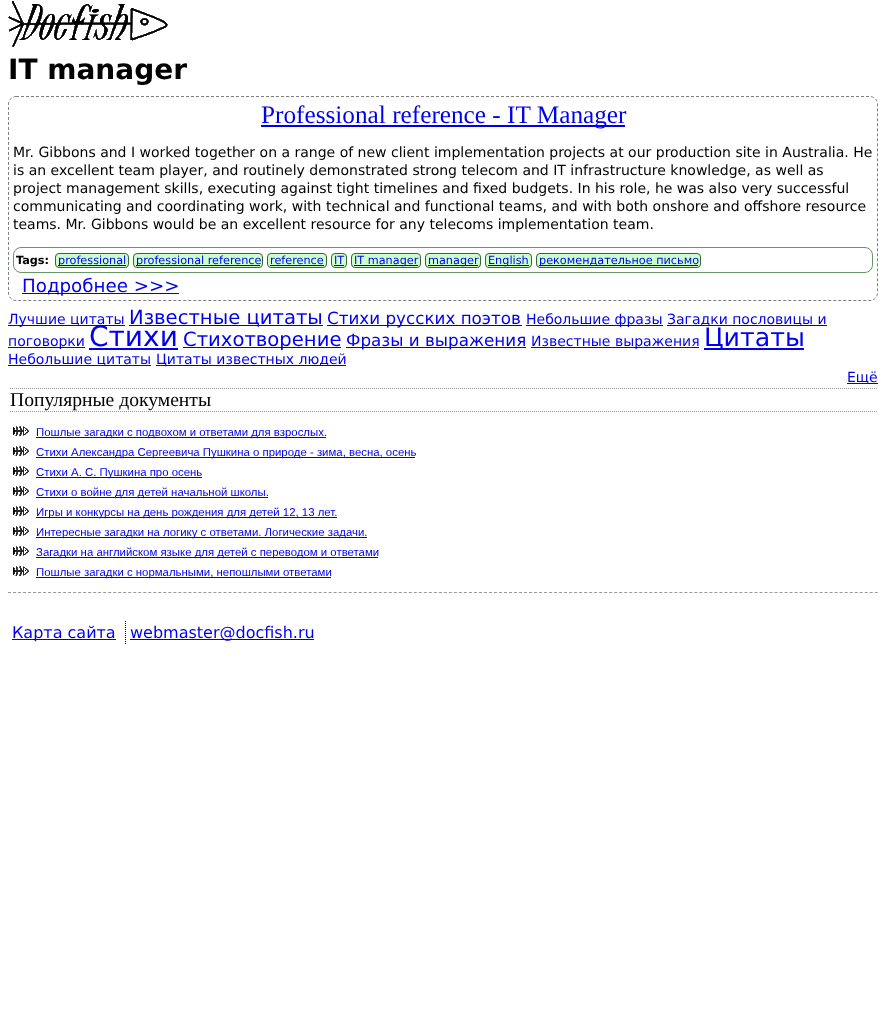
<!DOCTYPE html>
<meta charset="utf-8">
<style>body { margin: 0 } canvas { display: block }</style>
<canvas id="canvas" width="886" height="1011"></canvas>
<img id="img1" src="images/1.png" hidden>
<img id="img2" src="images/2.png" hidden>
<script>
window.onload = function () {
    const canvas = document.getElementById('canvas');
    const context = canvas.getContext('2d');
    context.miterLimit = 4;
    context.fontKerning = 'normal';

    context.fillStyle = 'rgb(255, 255, 255)';
    context.fillRect(0, 0, 886, 1011);
    context.drawImage(document.getElementById('img1'), 8, 1, 160, 46);
    context.beginPath();
    context.moveTo(16, 96.5);
    context.lineTo(870, 96.5);
    context.bezierCurveTo(874, 96.5, 877.5, 100, 877.5, 104);
    context.lineTo(877.5, 293);
    context.bezierCurveTo(877.5, 297, 874, 300.5, 870, 300.5);
    context.lineTo(16, 300.5);
    context.bezierCurveTo(12, 300.5, 8.5, 297, 8.5, 293);
    context.lineTo(8.5, 104);
    context.bezierCurveTo(8.5, 100, 12, 96.5, 16, 96.5);
    context.closePath();
    context.strokeStyle = 'rgb(128, 128, 128)';
    context.setLineDash([3, 2]);
    context.stroke();
    context.fillStyle = 'rgb(0, 0, 238)';
    context.fillRect(261, 125, 364, 2);
    context.beginPath();
    context.roundRect(13.5, 247.5, 859, 25, 7.5);
    context.strokeStyle = 'rgb(102, 153, 102)';
    context.setLineDash([]);
    context.stroke();
    context.fillStyle = 'rgb(204, 255, 204)';
    context.beginPath();
    context.roundRect(55.5, 253.5, 73, 14, 3.5);
    context.fill();
    context.strokeStyle = 'rgb(51, 102, 51)';
    context.stroke();
    context.fillStyle = 'rgb(0, 0, 238)';
    context.fillRect(58, 265, 68, 1);
    context.fillStyle = 'rgb(204, 255, 204)';
    context.beginPath();
    context.roundRect(133.5, 253.5, 129, 14, 3.5);
    context.fill();
    context.stroke();
    context.fillStyle = 'rgb(0, 0, 238)';
    context.fillRect(136, 265, 124, 1);
    context.fillStyle = 'rgb(204, 255, 204)';
    context.beginPath();
    context.roundRect(267.5, 253.5, 59, 14, 3.5);
    context.fill();
    context.stroke();
    context.fillStyle = 'rgb(0, 0, 238)';
    context.fillRect(270, 265, 54, 1);
    context.fillStyle = 'rgb(204, 255, 204)';
    context.beginPath();
    context.roundRect(331.5, 253.5, 15, 14, 3.5);
    context.fill();
    context.stroke();
    context.fillStyle = 'rgb(0, 0, 238)';
    context.fillRect(334, 265, 10, 1);
    context.fillStyle = 'rgb(204, 255, 204)';
    context.beginPath();
    context.roundRect(351.5, 253.5, 69, 14, 3.5);
    context.fill();
    context.stroke();
    context.fillStyle = 'rgb(0, 0, 238)';
    context.fillRect(354, 265, 64, 1);
    context.fillStyle = 'rgb(204, 255, 204)';
    context.beginPath();
    context.roundRect(425.5, 253.5, 55, 14, 3.5);
    context.fill();
    context.stroke();
    context.fillStyle = 'rgb(0, 0, 238)';
    context.fillRect(428, 265, 50, 1);
    context.fillStyle = 'rgb(204, 255, 204)';
    context.beginPath();
    context.roundRect(485.5, 253.5, 46, 14, 3.5);
    context.fill();
    context.stroke();
    context.fillStyle = 'rgb(0, 0, 238)';
    context.fillRect(488, 265, 41, 1);
    context.fillStyle = 'rgb(204, 255, 204)';
    context.beginPath();
    context.roundRect(536.5, 253.5, 164, 14, 3.5);
    context.fill();
    context.stroke();
    context.fillStyle = 'rgb(0, 0, 238)';
    context.fillRect(539, 265, 159, 1);
    context.fillRect(22, 293, 157, 1);
    context.fillRect(8, 325, 117, 1);
    context.fillRect(129, 325, 194, 1);
    context.fillRect(327, 325, 195, 1);
    context.fillRect(526, 325, 137, 1);
    context.fillRect(667, 325, 160, 1);
    context.fillRect(8, 347, 77, 1);
    context.fillRect(89, 348, 89, 2);
    context.fillRect(183, 347, 158, 1);
    context.fillRect(346, 347, 180, 1);
    context.fillRect(531, 347, 168, 1);
    context.fillRect(704, 348, 100, 2);
    context.fillRect(8, 365, 143, 1);
    context.fillRect(156, 365, 190, 1);
    context.fillRect(847, 383, 31, 1);
    context.beginPath();
    context.moveTo(8, 592.5);
    context.lineTo(878, 592.5);
    context.strokeStyle = 'rgb(153, 153, 153)';
    context.setLineDash([3, 2.01]);
    context.stroke();
    context.beginPath();
    context.moveTo(10, 388.5);
    context.lineTo(878, 388.5);
    context.setLineDash([1, 1]);
    context.stroke();
    context.beginPath();
    context.moveTo(10, 411.5);
    context.lineTo(878, 411.5);
    context.stroke();
    context.drawImage(document.getElementById('img2'), 13, 426, 16, 10);
    context.fillRect(36, 437, 290, 1);
    context.drawImage(document.getElementById('img2'), 13, 446, 16, 10);
    context.fillRect(36, 457, 379, 1);
    context.drawImage(document.getElementById('img2'), 13, 466, 16, 10);
    context.fillRect(36, 477, 166, 1);
    context.drawImage(document.getElementById('img2'), 13, 486, 16, 10);
    context.fillRect(36, 497, 232, 1);
    context.drawImage(document.getElementById('img2'), 13, 506, 16, 10);
    context.fillRect(36, 517, 301, 1);
    context.drawImage(document.getElementById('img2'), 13, 526, 16, 10);
    context.fillRect(36, 537, 331, 1);
    context.drawImage(document.getElementById('img2'), 13, 546, 16, 10);
    context.fillRect(36, 557, 342, 1);
    context.drawImage(document.getElementById('img2'), 13, 566, 16, 10);
    context.fillRect(36, 577, 295, 1);
    context.fillRect(12, 639, 104, 1);
    context.beginPath();
    context.moveTo(125.5, 621);
    context.lineTo(125.5, 644);
    context.strokeStyle = 'rgb(0, 0, 0)';
    context.stroke();
    context.fillRect(130, 639, 184, 1);
    context.font = 'bold 28px DejaVu Sans';
    context.fillStyle = 'rgb(0, 0, 0)';
    context.fillText('IT manager', 8, 79);
    context.font = '25.25px Liberation Serif';
    context.fillStyle = 'rgb(0, 0, 238)';
    context.fillText('Professional reference - IT Manager', 261, 123);
    context.font = '14px DejaVu Sans';
    context.fillStyle = 'rgb(0, 0, 0)';
    context.fillText('Mr. Gibbons and I worked together on a range of new client implementation projects at our production site in Australia. He', 13, 157);
    context.fillText('is an excellent team player, and routinely demonstrated strong telecom and IT infrastructure knowledge, as well as', 13, 175);
    context.fillText('project management skills, executing against tight timelines and fixed budgets. In his role, he was also very successful', 13, 193);
    context.fillText('communicating and coordinating work, with technical and functional teams, and with both onshore and offshore resource', 13, 211);
    context.fillText('teams. Mr. Gibbons would be an excellent resource for any telecoms implementation team.', 13, 229);
    context.font = 'bold 11.25px DejaVu Sans';
    context.fillText('Tags:', 16, 264);
    context.font = '11.25px DejaVu Sans';
    context.fillStyle = 'rgb(0, 0, 238)';
    context.fillText('professional', 58, 264);
    context.fillText('professional reference', 136, 264);
    context.fillText('reference', 270, 264);
    context.fillText('IT', 334, 264);
    context.fillText('IT manager', 354, 264);
    context.fillText('manager', 428, 264);
    context.fillText('English', 488, 264);
    context.fillText('рекомендательное письмо', 539, 264);
    context.font = '18.25px DejaVu Sans';
    context.fillText('Подробнее >>>', 22, 292);
    context.font = '14px DejaVu Sans';
    context.fillText('Лучшие цитаты', 8, 324);
    context.font = '19.6px DejaVu Sans';
    context.fillText('Известные цитаты', 129, 324);
    context.font = '16.75px DejaVu Sans';
    context.fillText('Стихи русских поэтов', 327, 324);
    context.font = '14px DejaVu Sans';
    context.fillText('Небольшие фразы', 526, 324);
    context.fillText('Загадки пословицы и', 667, 324);
    context.fillText('поговорки', 8, 346);
    context.font = '28px DejaVu Sans';
    context.fillText('Стихи', 89, 346);
    context.font = '19.6px DejaVu Sans';
    context.fillText('Стихотворение', 183, 346);
    context.font = '16.75px DejaVu Sans';
    context.fillText('Фразы и выражения', 346, 346);
    context.font = '14px DejaVu Sans';
    context.fillText('Известные выражения', 531, 346);
    context.font = '25.25px DejaVu Sans';
    context.fillText('Цитаты', 704, 346);
    context.font = '14px DejaVu Sans';
    context.fillText('Небольшие цитаты', 8, 364);
    context.fillText('Цитаты известных людей', 156, 364);
    context.fillText('Ещё', 847, 382);
    context.font = '19.6px Liberation Serif';
    context.fillStyle = 'rgb(0, 0, 0)';
    context.fillText('Популярные документы', 10, 406);
    context.font = '11.4px Liberation Sans';
    context.fillStyle = 'rgb(0, 0, 238)';
    context.fillText('Пошлые загадки с подвохом и ответами для взрослых.', 36, 436);
    context.fillText('Стихи Александра Сергеевича Пушкина о природе - зима, весна, осень', 36, 456);
    context.fillText('Стихи А. С. Пушкина про осень', 36, 476);
    context.fillText('Стихи о войне для детей начальной школы.', 36, 496);
    context.fillText('Игры и конкурсы на день рождения для детей 12, 13 лет.', 36, 516);
    context.fillText('Интересные загадки на логику с ответами. Логические задачи.', 36, 536);
    context.fillText('Загадки на английском языке для детей с переводом и ответами', 36, 556);
    context.fillText('Пошлые загадки с нормальными, непошлыми ответами', 36, 576);
    context.font = '16px DejaVu Sans';
    context.fillText('Карта сайта', 12, 638);
    context.fillText('webmaster@docfish.ru', 130, 638);
};
</script>
